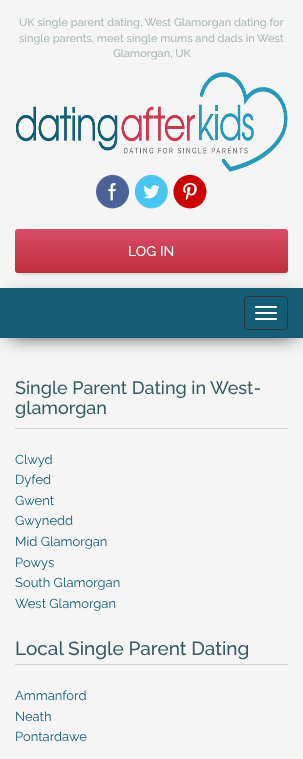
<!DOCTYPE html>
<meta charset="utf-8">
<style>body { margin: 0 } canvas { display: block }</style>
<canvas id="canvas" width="303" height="759"></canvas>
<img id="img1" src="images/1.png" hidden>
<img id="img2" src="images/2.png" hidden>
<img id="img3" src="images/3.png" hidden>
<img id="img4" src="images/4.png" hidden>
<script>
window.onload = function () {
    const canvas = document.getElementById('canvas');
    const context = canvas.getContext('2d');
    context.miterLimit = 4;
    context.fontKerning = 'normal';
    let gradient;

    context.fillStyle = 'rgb(245, 245, 245)';
    context.fillRect(0, 0, 303, 759);
    context.drawImage(document.getElementById('img1'), 16, 72, 272, 100);
    context.drawImage(document.getElementById('img2'), 96, 174, 33, 35);
    context.drawImage(document.getElementById('img3'), 134, 174, 34, 35);
    context.drawImage(document.getElementById('img4'), 173, 174, 34, 35);
    context.fillStyle = 'rgb(204, 204, 204)';
    context.filter = 'blur(2px)';
    context.beginPath();
    context.rect(20, 238, 265, 36);
    context.fill();
    context.filter = 'none';
    gradient = context.createLinearGradient(152, 229, 152, 273);
    gradient.addColorStop(0, 'rgb(216, 77, 103)');
    gradient.addColorStop(1, 'rgb(192, 45, 61)');
    context.fillStyle = gradient;
    context.beginPath();
    context.roundRect(15, 229, 273, 44, 3);
    context.fill();
    context.fillStyle = 'rgb(0, 0, 0)';
    context.filter = 'blur(10px)';
    context.beginPath();
    context.rect(10, 302, 285, 32);
    context.fill();
    context.filter = 'none';
    context.fillStyle = 'rgb(21, 92, 118)';
    context.fillRect(0, 288, 303, 50);
    context.beginPath();
    context.roundRect(244.5, 296.5, 43, 33, 3.5);
    context.strokeStyle = 'rgb(51, 51, 51)';
    context.stroke();
    context.fillStyle = 'rgb(255, 255, 255)';
    context.beginPath();
    context.roundRect(255, 306, 22, 2, 1);
    context.fill();
    context.beginPath();
    context.roundRect(255, 312, 22, 2, 1);
    context.fill();
    context.beginPath();
    context.roundRect(255, 318, 22, 2, 1);
    context.fill();
    context.fillStyle = 'rgb(211, 211, 211)';
    context.fillRect(15, 428, 273, 1);
    context.fillRect(15, 664, 273, 1);
    context.font = '500 11px Raleway';
    context.fillStyle = 'rgb(169, 183, 182)';
    context.fillText('UK single parent dating, West Glamorgan dating for', 19, 26);
    context.fillText('single parents, meet single mums and dads in West', 19, 42);
    context.fillText('Glamorgan, UK', 113, 57);
    context.font = '500 14px Raleway';
    context.fillStyle = 'rgb(255, 255, 255)';
    context.fillText('LOG IN', 128, 256);
    context.font = '500 18px Raleway';
    context.fillStyle = 'rgb(53, 90, 96)';
    context.fillText('Single Parent Dating in West-', 15, 394);
    context.fillText('glamorgan', 15, 414);
    context.font = '13px Raleway';
    context.fillStyle = 'rgb(21, 92, 118)';
    context.fillText('Clwyd', 15, 464);
    context.fillText('Dyfed', 15, 484);
    context.fillText('Gwent', 15, 505);
    context.fillText('Gwynedd', 15, 525);
    context.fillText('Mid Glamorgan', 15, 546);
    context.fillText('Powys', 15, 567);
    context.fillText('South Glamorgan', 15, 587);
    context.fillText('West Glamorgan', 15, 608);
    context.font = '500 19px Raleway';
    context.fillStyle = 'rgb(53, 90, 96)';
    context.fillText('Local Single Parent Dating', 15, 655);
    context.font = '13px Raleway';
    context.fillStyle = 'rgb(21, 92, 118)';
    context.fillText('Ammanford', 15, 700);
    context.fillText('Neath', 15, 721);
    context.fillText('Pontardawe', 15, 741);
};
</script>
